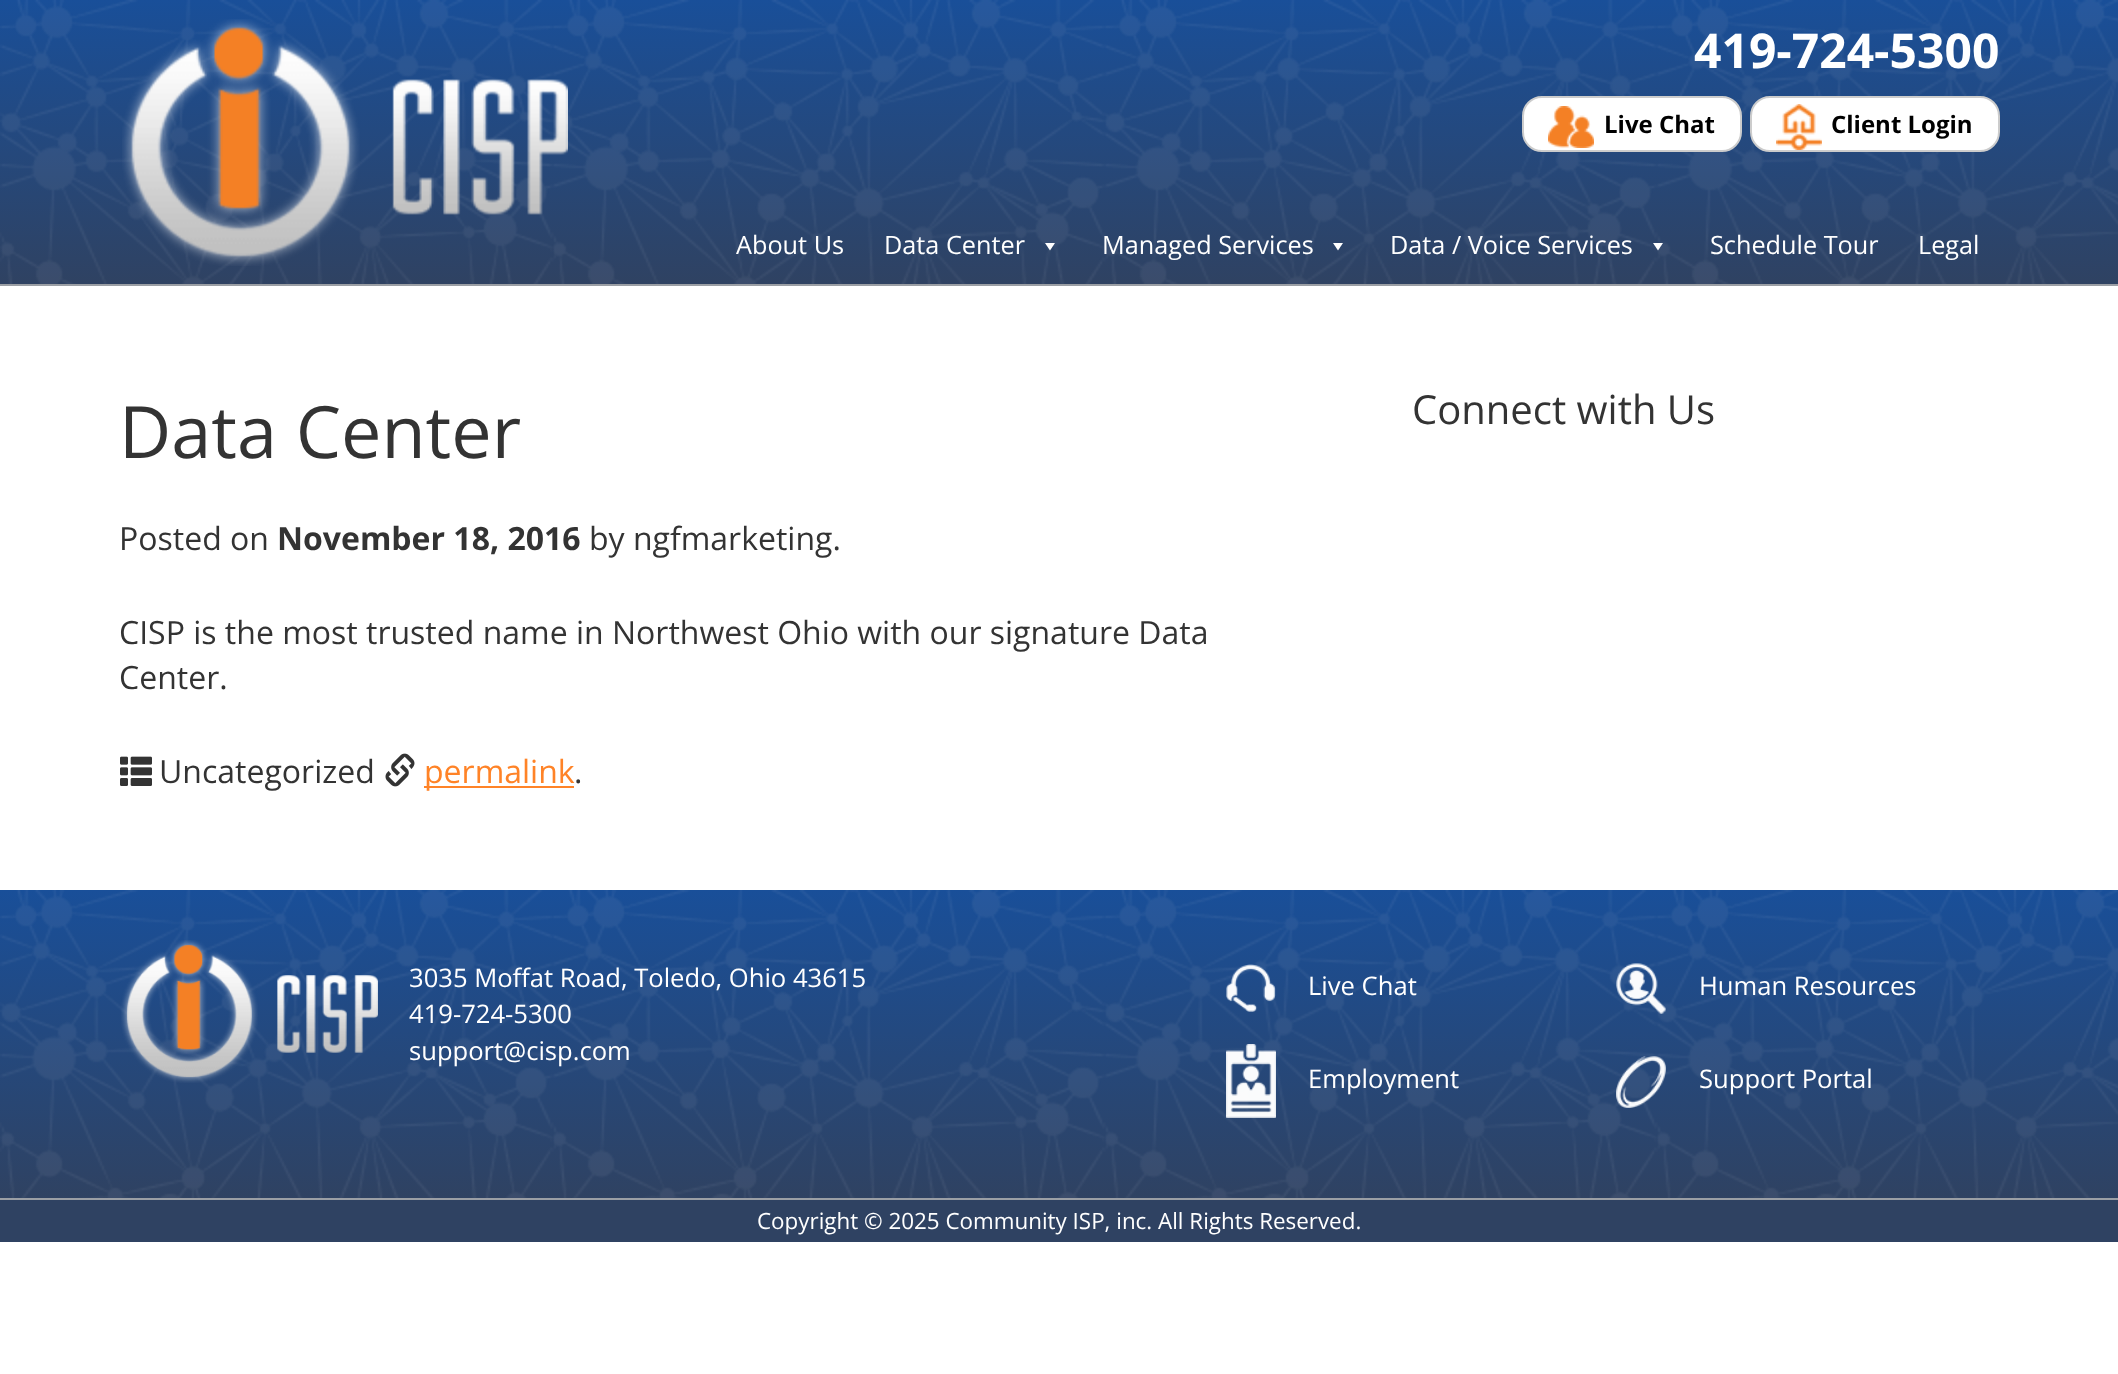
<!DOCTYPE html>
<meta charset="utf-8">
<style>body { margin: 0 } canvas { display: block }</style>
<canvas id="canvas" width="2118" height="1374"></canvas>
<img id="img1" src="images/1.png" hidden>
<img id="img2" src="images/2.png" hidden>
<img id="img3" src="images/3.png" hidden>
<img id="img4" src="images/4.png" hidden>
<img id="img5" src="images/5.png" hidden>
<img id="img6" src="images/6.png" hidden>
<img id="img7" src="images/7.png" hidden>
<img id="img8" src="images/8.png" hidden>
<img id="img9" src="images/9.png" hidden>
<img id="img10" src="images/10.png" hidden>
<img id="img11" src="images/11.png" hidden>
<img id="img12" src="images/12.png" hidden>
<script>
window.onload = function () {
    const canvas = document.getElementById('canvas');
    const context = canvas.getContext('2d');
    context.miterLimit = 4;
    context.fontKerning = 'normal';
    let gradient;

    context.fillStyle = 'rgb(255, 255, 255)';
    context.fillRect(0, 0, 2118, 1374);
    gradient = context.createLinearGradient(1059, 0, 1059, 284);
    gradient.addColorStop(0, 'rgb(25, 79, 153)');
    gradient.addColorStop(1, 'rgb(47, 66, 98)');
    context.fillStyle = gradient;
    context.fillRect(0, 0, 2118, 284);
    context.fillStyle = 'rgb(155, 159, 165)';
    context.fillRect(0, 284, 2118, 2);
    context.drawImage(document.getElementById('img1'), 0, 0, 2118, 284);
    context.drawImage(document.getElementById('img2'), 122, 19, 446, 247);
    context.fillStyle = 'rgb(255, 255, 255)';
    context.beginPath();
    context.roundRect(1523, 97, 218, 54, 19);
    context.fill();
    context.strokeStyle = 'rgb(204, 204, 204)';
    context.lineWidth = 2;
    context.stroke();
    context.drawImage(document.getElementById('img3'), 1548, 106, 46, 42);
    context.beginPath();
    context.roundRect(1751, 97, 248, 54, 19);
    context.fill();
    context.stroke();
    context.drawImage(document.getElementById('img4'), 1776, 104, 46, 46);
    context.beginPath();
    context.moveTo(1055, 243);
    context.lineTo(1050, 250.5);
    context.lineTo(1045, 243);
    context.closePath();
    context.fill();
    context.beginPath();
    context.moveTo(1343, 243);
    context.lineTo(1338, 250.5);
    context.lineTo(1333, 243);
    context.closePath();
    context.fill();
    context.beginPath();
    context.moveTo(1663, 243);
    context.lineTo(1658, 250.5);
    context.lineTo(1653, 243);
    context.closePath();
    context.fill();
    context.drawImage(document.getElementById('img5'), 120, 756, 32, 30);
    context.drawImage(document.getElementById('img6'), 385, 753, 30, 34);
    context.fillStyle = 'rgb(255, 131, 39)';
    context.fillRect(424, 786, 150, 2);
    gradient = context.createLinearGradient(1059, 890, 1059, 1198);
    gradient.addColorStop(0, 'rgb(25, 79, 153)');
    gradient.addColorStop(1, 'rgb(47, 66, 98)');
    context.fillStyle = gradient;
    context.fillRect(0, 890, 2118, 308);
    context.fillStyle = 'rgb(155, 159, 165)';
    context.fillRect(0, 1198, 2118, 2);
    context.drawImage(document.getElementById('img7'), 0, 890, 2118, 308);
    context.drawImage(document.getElementById('img8'), 121, 940, 257, 143);
    context.drawImage(document.getElementById('img9'), 1226, 964, 50, 48);
    context.drawImage(document.getElementById('img10'), 1616, 963, 50, 51);
    context.drawImage(document.getElementById('img11'), 1226, 1044, 50, 74);
    context.drawImage(document.getElementById('img12'), 1616, 1056, 50, 52);
    context.fillStyle = 'rgb(47, 66, 98)';
    context.fillRect(0, 1200, 2118, 42);
    context.font = 'bold 48px Open Sans';
    context.fillStyle = 'rgb(255, 255, 255)';
    context.fillText('419-724-5300', 1694, 68);
    context.font = 'bold 24px Open Sans';
    context.fillStyle = 'rgb(0, 0, 0)';
    context.fillText('Live Chat', 1604, 133);
    context.fillText('Client Login', 1831, 133);
    context.font = '25.25px Open Sans';
    context.fillStyle = 'rgb(255, 255, 255)';
    context.fillText('About Us', 736, 254);
    context.fillText('Data Center', 884, 254);
    context.fillText('Managed Services', 1102, 254);
    context.fillText('Data / Voice Services', 1390, 254);
    context.fillText('Schedule Tour', 1710, 254);
    context.fillText('Legal', 1918, 254);
    context.font = '72px Open Sans';
    context.fillStyle = 'rgb(51, 51, 51)';
    context.fillText('Data Center', 119, 458);
    context.font = '32px Open Sans';
    context.fillText('Posted on', 119, 550);
    context.font = 'bold 32px Open Sans';
    context.fillText('November 18, 2016', 277, 550);
    context.font = '32px Open Sans';
    context.fillText('by ngfmarketing.', 589, 550);
    context.fillText('CISP is the most trusted name in Northwest Ohio with our signature Data', 119, 644);
    context.fillText('Center.', 119, 689);
    context.fillText('Uncategorized', 159, 783);
    context.fillStyle = 'rgb(255, 131, 39)';
    context.fillText('permalink', 424, 783);
    context.fillStyle = 'rgb(51, 51, 51)';
    context.fillText('.', 574, 783);
    context.font = '40px Open Sans';
    context.fillText('Connect with Us', 1412, 424);
    context.font = '25.6px Open Sans';
    context.fillStyle = 'rgb(255, 255, 255)';
    context.fillText('3035 Moffat Road, Toledo, Ohio 43615', 409, 987);
    context.fillText('419-724-5300', 409, 1023);
    context.fillText('support@cisp.com', 409, 1060);
    context.fillText('Live Chat', 1308, 995);
    context.fillText('Human Resources', 1699, 995);
    context.fillText('Employment', 1308, 1088);
    context.fillText('Support Portal', 1699, 1088);
    context.font = '22.4px Open Sans';
    context.fillText('Copyright © 2025 Community ISP, inc. All Rights Reserved.', 757, 1229);
};
</script>
